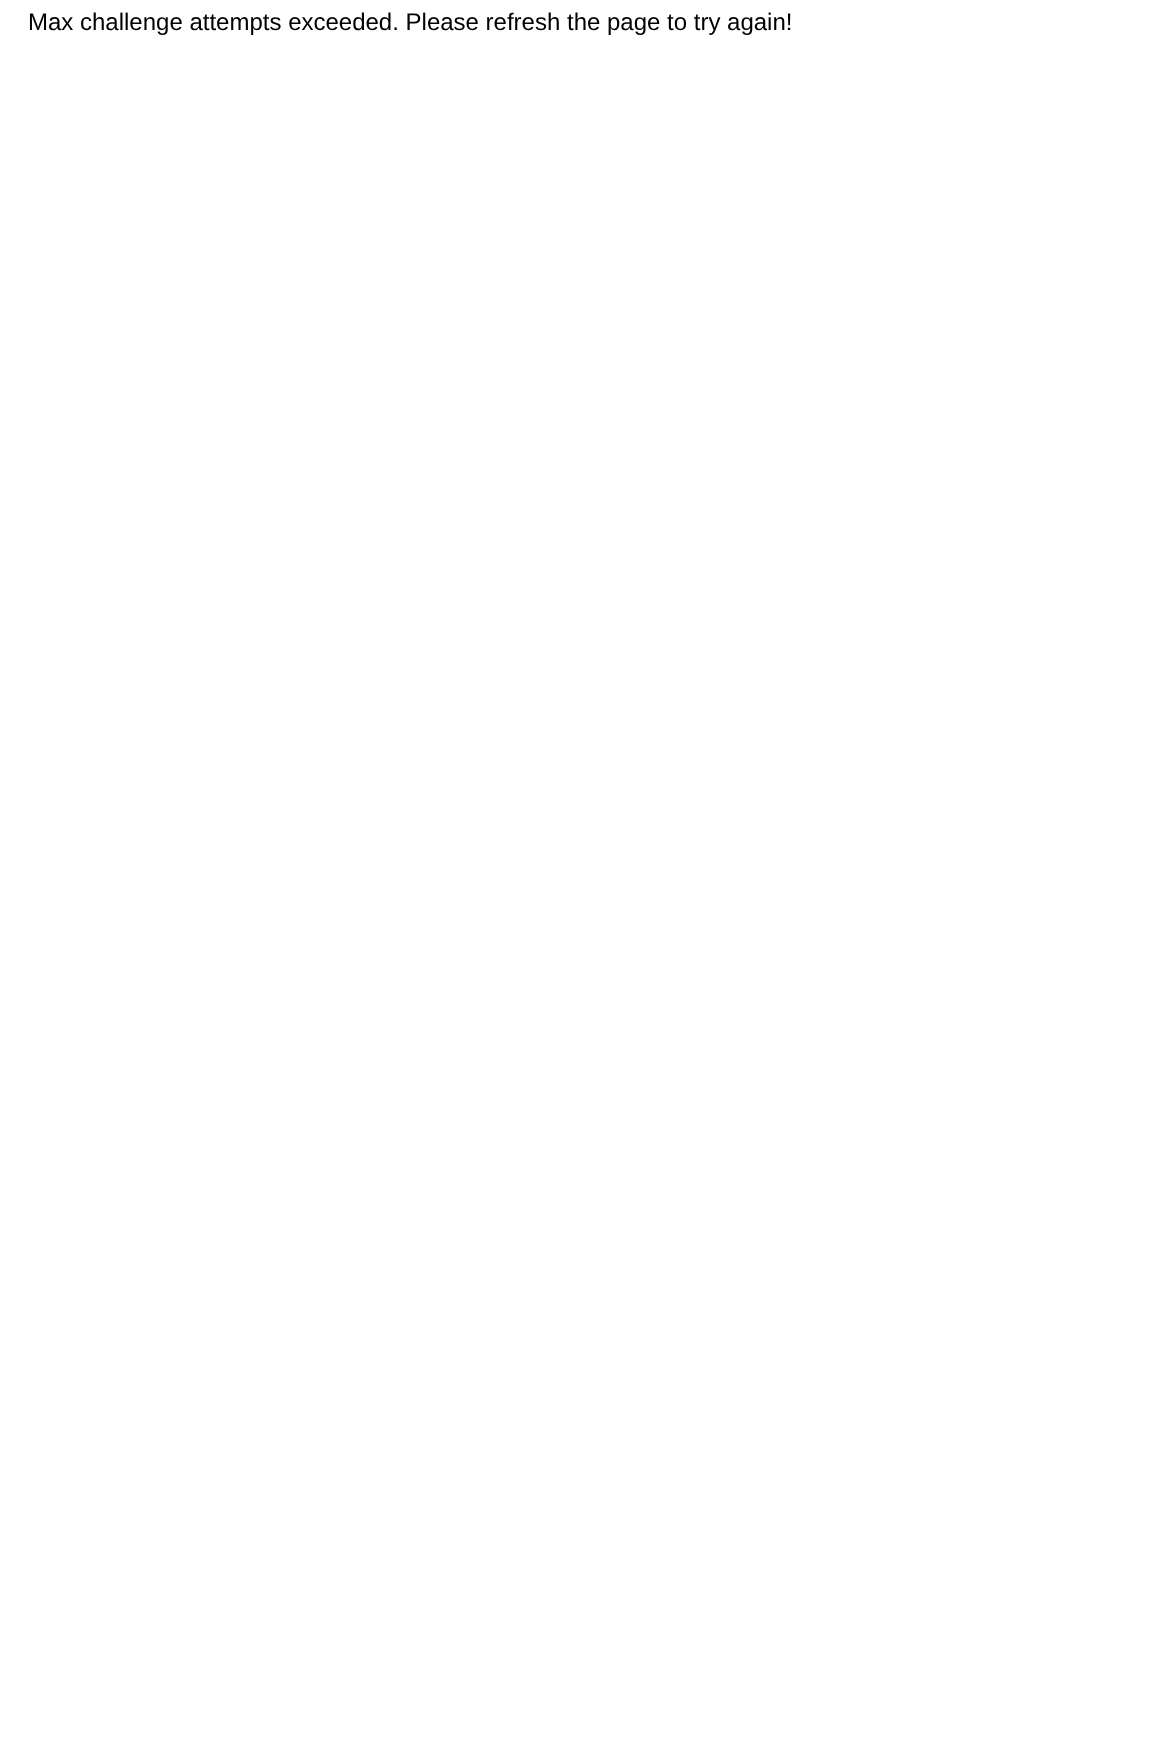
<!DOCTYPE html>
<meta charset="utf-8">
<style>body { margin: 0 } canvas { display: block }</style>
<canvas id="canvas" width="1175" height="1742"></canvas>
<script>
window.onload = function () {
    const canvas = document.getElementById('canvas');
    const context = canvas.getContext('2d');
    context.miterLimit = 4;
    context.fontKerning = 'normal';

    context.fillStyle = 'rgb(255, 255, 255)';
    context.fillRect(0, 0, 1175, 1742);
    context.font = '24px Liberation Sans';
    context.fillStyle = 'rgb(0, 0, 0)';
    context.fillText('Max challenge attempts exceeded. Please refresh the page to try again!', 28, 30);
};
</script>
